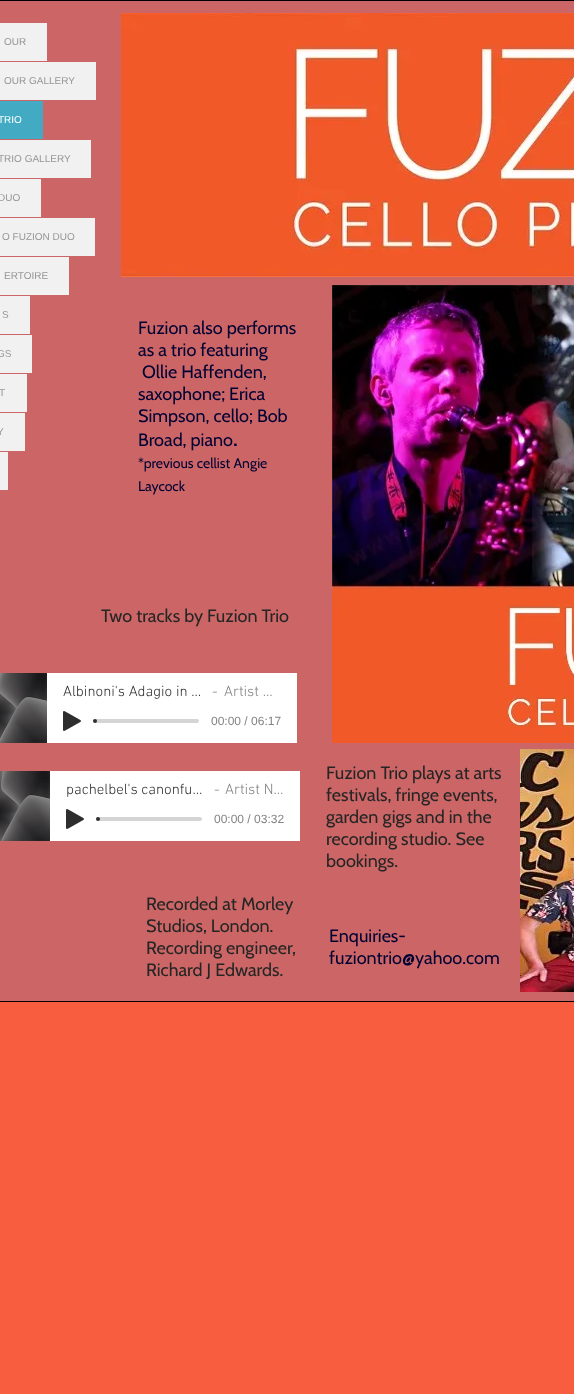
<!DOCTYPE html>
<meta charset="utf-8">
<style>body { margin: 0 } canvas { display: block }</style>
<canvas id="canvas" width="574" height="1394"></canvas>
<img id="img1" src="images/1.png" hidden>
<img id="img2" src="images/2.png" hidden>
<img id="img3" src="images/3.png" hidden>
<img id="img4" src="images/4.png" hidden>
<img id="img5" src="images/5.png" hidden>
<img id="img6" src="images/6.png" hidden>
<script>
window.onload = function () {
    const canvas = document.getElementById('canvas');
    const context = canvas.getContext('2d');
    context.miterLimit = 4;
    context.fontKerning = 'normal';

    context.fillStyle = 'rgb(247, 93, 62)';
    context.fillRect(0, 0, 574, 1394);
    context.fillStyle = 'rgb(204, 102, 102)';
    context.beginPath();
    context.rect(-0.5, 0.5, 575, 1001);
    context.fill();
    context.strokeStyle = 'rgb(0, 0, 0)';
    context.stroke();
    context.fillStyle = 'rgb(241, 241, 241)';
    context.fillRect(0, 23, 47, 38);
    context.fillRect(0, 62, 96, 38);
    context.fillStyle = 'rgb(66, 171, 195)';
    context.fillRect(0, 101, 43, 38);
    context.fillStyle = 'rgb(241, 241, 241)';
    context.fillRect(0, 140, 91, 38);
    context.fillRect(0, 179, 41, 38);
    context.fillRect(0, 218, 95, 38);
    context.fillRect(0, 257, 69, 38);
    context.fillRect(0, 296, 30, 38);
    context.fillRect(0, 335, 32, 38);
    context.fillRect(0, 374, 27, 38);
    context.fillRect(0, 413, 25, 38);
    context.fillRect(0, 452, 8, 38);
    context.drawImage(document.getElementById('img1'), 121, 13, 453, 264);
    context.drawImage(document.getElementById('img2'), 332, 285, 242, 458);
    context.fillStyle = 'rgb(255, 255, 255)';
    context.fillRect(47, 673, 250, 70);
    context.drawImage(document.getElementById('img3'), 0, 673, 47, 70);
    context.drawImage(document.getElementById('img4'), 63, 711, 18, 20);
    context.fillStyle = 'rgb(213, 213, 213)';
    context.beginPath();
    context.roundRect(95, 719, 104, 4, 2);
    context.fill();
    context.fillStyle = 'rgb(47, 46, 46)';
    context.beginPath();
    context.arc(95, 721, 2, 0, 2 * Math.PI);
    context.fill();
    context.fillStyle = 'rgb(255, 255, 255)';
    context.fillRect(50, 771, 250, 70);
    context.drawImage(document.getElementById('img5'), 0, 771, 50, 70);
    context.drawImage(document.getElementById('img4'), 66, 809, 18, 20);
    context.fillStyle = 'rgb(213, 213, 213)';
    context.beginPath();
    context.roundRect(98, 817, 104, 4, 2);
    context.fill();
    context.fillStyle = 'rgb(47, 46, 46)';
    context.beginPath();
    context.arc(98, 819, 2, 0, 2 * Math.PI);
    context.fill();
    context.drawImage(document.getElementById('img6'), 520, 749, 54, 243);
    context.font = '10px Liberation Sans';
    context.fillStyle = 'rgb(150, 150, 150)';
    context.fillText('OUR', 4, 45);
    context.fillText('OUR GALLERY', 4, 84);
    context.fillStyle = 'rgb(255, 255, 255)';
    context.fillText('TRIO', -2, 123);
    context.fillStyle = 'rgb(150, 150, 150)';
    context.fillText('TRIO GALLERY', -2, 162);
    context.fillText('DUO', -2, 201);
    context.fillText('O FUZION DUO', 2, 240);
    context.fillText('ERTOIRE', 4, 279);
    context.fillText('S', 2, 318);
    context.fillText('GS', -3, 357);
    context.fillText('T', -1, 396);
    context.fillText('Y', -3, 435);
    context.font = '18px Cabin';
    context.fillStyle = 'rgb(0, 0, 51)';
    context.fillText('Fuzion also performs', 138, 334);
    context.fillText('as a trio featuring', 138, 356);
    context.fillText('Ollie Haffenden,', 142, 378);
    context.fillText('saxophone; Erica', 138, 400);
    context.fillText('Simpson, cello; Bob', 138, 422);
    context.fillText('Broad, piano', 138, 446);
    context.font = '23px Cabin';
    context.fillText('.', 233, 446);
    context.font = '14px Cabin';
    context.fillText('*previous cellist Angie', 138, 468);
    context.fillText('Laycock', 138, 491);
    context.font = '18px Cabin';
    context.fillStyle = 'rgb(37, 37, 37)';
    context.fillText('Two tracks by Fuzion Trio', 101, 622);
    context.font = '300 15px "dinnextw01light"';
    context.fillStyle = 'rgb(47, 46, 46)';
    context.fillText('Albinoni\'s Adagio in …', 63, 696);
    context.fillStyle = 'rgb(130, 130, 130)';
    context.fillText('-', 212, 696);
    context.fillText('Artist …', 224, 696);
    context.font = '12px Liberation Sans';
    context.fillText('00:00 / 06:17', 211, 725);
    context.font = '300 15px "dinnextw01light"';
    context.fillStyle = 'rgb(47, 46, 46)';
    context.fillText('pachelbel\'s canonfu…', 66, 794);
    context.fillStyle = 'rgb(130, 130, 130)';
    context.fillText('-', 214, 794);
    context.fillText('Artist N…', 225, 794);
    context.font = '12px Liberation Sans';
    context.fillText('00:00 / 03:32', 214, 823);
    context.font = '18px Cabin';
    context.fillStyle = 'rgb(37, 37, 37)';
    context.fillText('Recorded at Morley', 146, 910);
    context.fillText('Studios, London.', 146, 932);
    context.fillText('Recording engineer,', 146, 954);
    context.fillText('Richard J Edwards.', 146, 976);
    context.fillText('Fuzion Trio plays at arts', 326, 779);
    context.fillText('festivals, fringe events,', 326, 801);
    context.fillText('garden gigs and in the', 326, 823);
    context.fillText('recording studio. See', 326, 845);
    context.fillText('bookings.', 326, 867);
    context.fillStyle = 'rgb(0, 0, 51)';
    context.fillText('Enquiries-', 329, 942);
    context.fillText('fuziontrio@yahoo.com', 329, 964);
};
</script>
